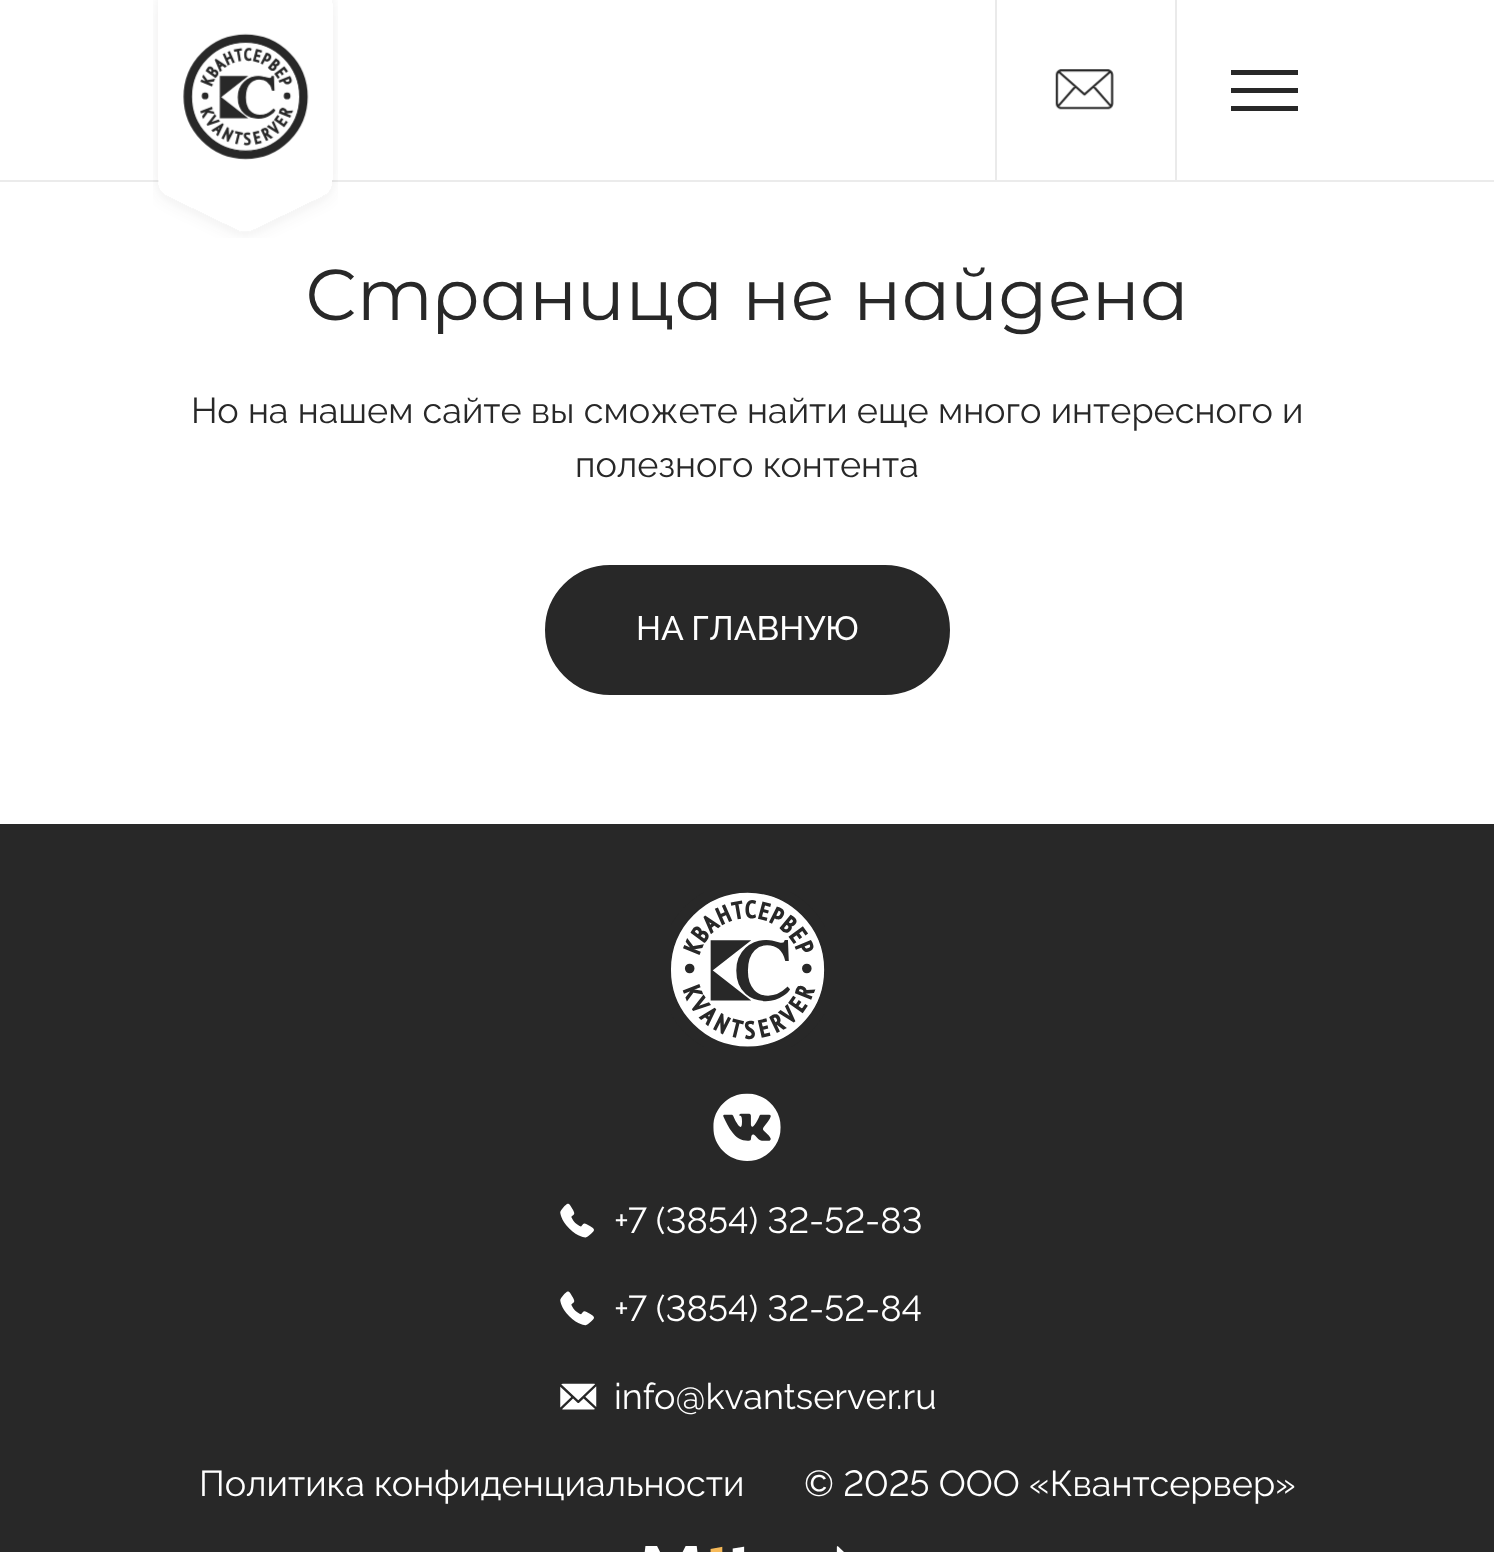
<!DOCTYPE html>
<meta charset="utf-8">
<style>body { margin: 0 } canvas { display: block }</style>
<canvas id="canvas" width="1494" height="1552"></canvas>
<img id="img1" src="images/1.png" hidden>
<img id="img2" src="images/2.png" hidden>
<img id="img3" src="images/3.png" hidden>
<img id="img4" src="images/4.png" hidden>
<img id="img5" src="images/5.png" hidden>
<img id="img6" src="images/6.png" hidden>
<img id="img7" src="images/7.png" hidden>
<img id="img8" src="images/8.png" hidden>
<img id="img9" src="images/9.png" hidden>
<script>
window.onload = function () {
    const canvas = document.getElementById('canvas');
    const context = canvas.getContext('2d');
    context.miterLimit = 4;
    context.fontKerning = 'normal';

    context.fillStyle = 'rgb(255, 255, 255)';
    context.fillRect(0, 0, 1494, 1552);
    context.fillStyle = 'rgb(235, 235, 235)';
    context.fillRect(0, 180, 1494, 2);
    context.drawImage(document.getElementById('img1'), 153, 0, 185, 238);
    context.drawImage(document.getElementById('img2'), 183, 33, 126, 127);
    context.fillStyle = 'rgb(234, 234, 234)';
    context.fillRect(995, 0, 2, 180);
    context.drawImage(document.getElementById('img3'), 1055, 69, 59, 41);
    context.fillRect(1175, 0, 2, 180);
    context.fillStyle = 'rgb(40, 40, 40)';
    context.fillRect(1231, 88, 67, 5);
    context.fillRect(1231, 70, 67, 5);
    context.fillRect(1231, 106, 67, 5);
    context.beginPath();
    context.roundRect(546, 566, 403, 128, 64);
    context.fill();
    context.strokeStyle = 'rgb(40, 40, 40)';
    context.lineWidth = 2;
    context.stroke();
    context.fillRect(0, 824, 1494, 728);
    context.drawImage(document.getElementById('img4'), 671, 892, 154, 155);
    context.drawImage(document.getElementById('img5'), 713, 1093, 68, 68);
    context.drawImage(document.getElementById('img6'), 560, 1203, 34, 35);
    context.drawImage(document.getElementById('img7'), 560, 1291, 34, 35);
    context.drawImage(document.getElementById('img8'), 560, 1383, 37, 27);
    context.drawImage(document.getElementById('img9'), 644, 1546, 200, 6);
    context.font = '72px Montserrat Alternates';
    context.fillText('Страница не найдена', 305, 320);
    context.font = '36px Raleway';
    context.fillText('Но на нашем сайте вы сможете найти еще много интересного и', 191, 423);
    context.fillText('полезного контента', 575, 477);
    context.font = '500 33.75px Raleway';
    context.fillStyle = 'rgb(255, 255, 255)';
    context.fillText('НА ГЛАВНУЮ', 636, 640);
    context.font = '36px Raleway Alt';
    context.fillText('+7 (3854) 32-52-83', 614, 1233);
    context.fillText('+7 (3854) 32-52-84', 614, 1321);
    context.font = '36px Raleway';
    context.fillText('info@kvantserver.ru', 614, 1409);
    context.fillText('Политика конфиденциальности', 199, 1496);
    context.font = '36px Raleway Alt';
    context.fillText('© 2025 ООО «Квантсервер»', 804, 1496);
};
</script>
